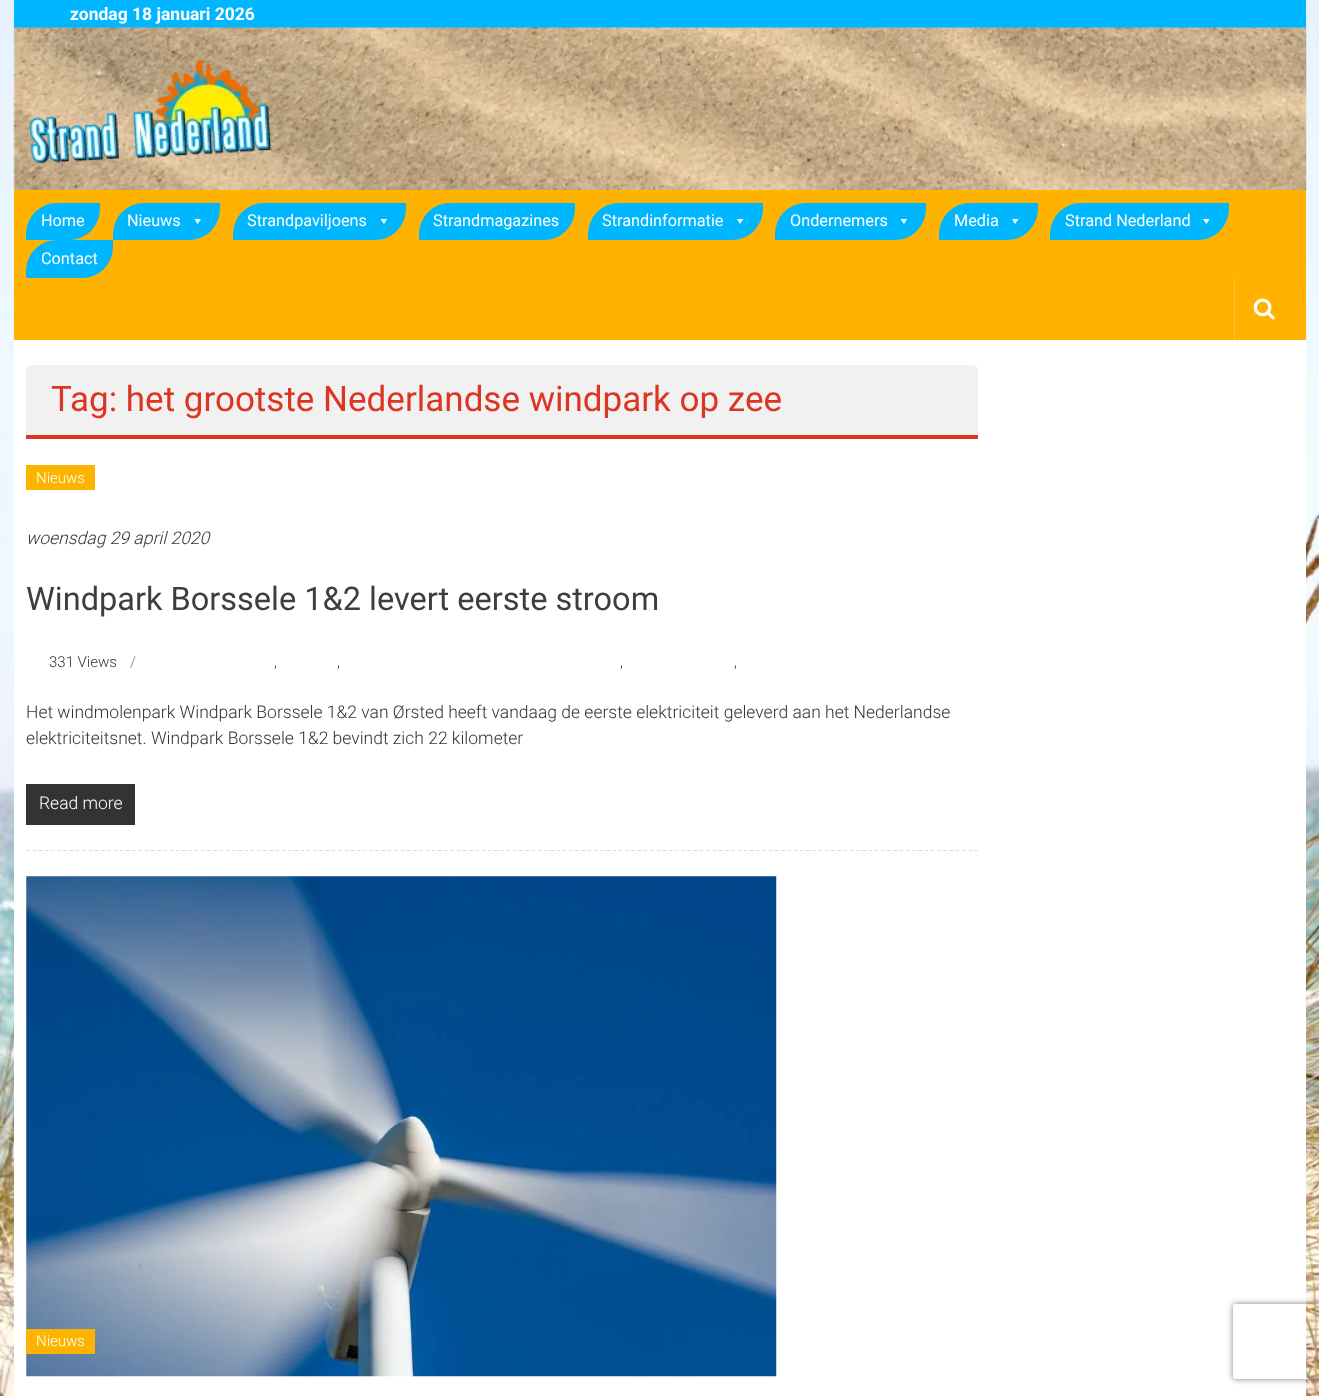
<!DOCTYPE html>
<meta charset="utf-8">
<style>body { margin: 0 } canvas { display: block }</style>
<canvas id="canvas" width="1319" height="1396"></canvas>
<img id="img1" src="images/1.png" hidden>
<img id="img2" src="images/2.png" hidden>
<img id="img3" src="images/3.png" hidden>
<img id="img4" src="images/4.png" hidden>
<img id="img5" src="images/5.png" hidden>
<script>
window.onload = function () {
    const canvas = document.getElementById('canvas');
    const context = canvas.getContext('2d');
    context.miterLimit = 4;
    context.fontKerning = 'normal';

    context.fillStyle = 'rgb(255, 255, 255)';
    context.fillRect(0, 0, 1319, 1396);
    context.drawImage(document.getElementById('img1'), 0, 0, 1319, 1396);
    context.fillRect(14, 28, 1292, 1368);
    context.fillStyle = 'rgb(0, 182, 255)';
    context.fillRect(14, 0, 1292, 28);
    context.drawImage(document.getElementById('img2'), 13, 27, 1294, 163);
    context.drawImage(document.getElementById('img3'), 29, 58, 243, 106);
    context.fillStyle = 'rgb(255, 179, 0)';
    context.fillRect(14, 190, 1292, 150);
    context.fillStyle = 'rgb(0, 182, 255)';
    context.beginPath();
    context.roundRect(26, 203, 74, 37, [31, 0, 31, 0]);
    context.fill();
    context.beginPath();
    context.roundRect(113, 203, 107, 37, [31, 0, 31, 0]);
    context.fill();
    context.fillStyle = 'rgb(255, 255, 255)';
    context.beginPath();
    context.moveTo(201, 219);
    context.lineTo(197.5, 224);
    context.lineTo(194.5, 219);
    context.closePath();
    context.fill();
    context.fillStyle = 'rgb(0, 182, 255)';
    context.beginPath();
    context.roundRect(233, 203, 173, 37, [31, 0, 31, 0]);
    context.fill();
    context.fillStyle = 'rgb(255, 255, 255)';
    context.beginPath();
    context.moveTo(387, 219);
    context.lineTo(384, 224);
    context.lineTo(380.5, 219);
    context.closePath();
    context.fill();
    context.fillStyle = 'rgb(0, 182, 255)';
    context.beginPath();
    context.roundRect(419, 203, 156, 37, [31, 0, 31, 0]);
    context.fill();
    context.beginPath();
    context.roundRect(588, 203, 175, 37, [31, 0, 31, 0]);
    context.fill();
    context.fillStyle = 'rgb(255, 255, 255)';
    context.beginPath();
    context.moveTo(743.5, 219);
    context.lineTo(740, 224);
    context.lineTo(737, 219);
    context.closePath();
    context.fill();
    context.fillStyle = 'rgb(0, 182, 255)';
    context.beginPath();
    context.roundRect(775, 203, 151, 37, [31, 0, 31, 0]);
    context.fill();
    context.fillStyle = 'rgb(255, 255, 255)';
    context.beginPath();
    context.moveTo(907, 219);
    context.lineTo(904, 224);
    context.lineTo(900.5, 219);
    context.closePath();
    context.fill();
    context.fillStyle = 'rgb(0, 182, 255)';
    context.beginPath();
    context.roundRect(939, 203, 99, 37, [31, 0, 31, 0]);
    context.fill();
    context.fillStyle = 'rgb(255, 255, 255)';
    context.beginPath();
    context.moveTo(1018.5, 219);
    context.lineTo(1015, 224);
    context.lineTo(1012, 219);
    context.closePath();
    context.fill();
    context.fillStyle = 'rgb(0, 182, 255)';
    context.beginPath();
    context.roundRect(1050, 203, 179, 37, [31, 0, 31, 0]);
    context.fill();
    context.fillStyle = 'rgb(255, 255, 255)';
    context.beginPath();
    context.moveTo(1209.5, 219);
    context.lineTo(1206.5, 224);
    context.lineTo(1203, 219);
    context.closePath();
    context.fill();
    context.fillStyle = 'rgb(0, 182, 255)';
    context.beginPath();
    context.roundRect(26, 240, 87, 38, [31, 0, 31, 0]);
    context.fill();
    context.fillStyle = 'rgb(255, 194, 51)';
    context.fillRect(1234, 278, 1, 62);
    context.drawImage(document.getElementById('img4'), 1253, 298, 22, 22);
    context.fillStyle = 'rgb(241, 241, 241)';
    context.beginPath();
    context.roundRect(26, 365, 952, 74, [6, 6, 0, 0]);
    context.fill();
    context.fillStyle = 'rgb(220, 53, 34)';
    context.fillRect(26, 435, 952, 4);
    context.beginPath();
    context.moveTo(26, 850.5);
    context.lineTo(977.5, 850.5);
    context.strokeStyle = 'rgb(221, 221, 221)';
    context.lineWidth = 1.2;
    context.setLineDash([3.75, 2.49]);
    context.stroke();
    context.fillStyle = 'rgb(252, 180, 0)';
    context.fillRect(26, 465, 69, 25);
    context.fillStyle = 'rgb(51, 51, 51)';
    context.fillRect(26, 784, 109, 41);
    context.drawImage(document.getElementById('img5'), 26, 876, 751, 501);
    context.fillStyle = 'rgb(252, 180, 0)';
    context.fillRect(26, 1329, 69, 25);
    context.save();
    context.beginPath();
    context.moveTo(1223, 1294);
    context.lineTo(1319, 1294);
    context.lineTo(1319, 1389);
    context.lineTo(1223, 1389);
    context.closePath();
    context.moveTo(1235.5, 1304);
    context.lineTo(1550.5, 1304);
    context.bezierCurveTo(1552, 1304, 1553, 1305, 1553, 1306.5);
    context.lineTo(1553, 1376.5);
    context.bezierCurveTo(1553, 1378, 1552, 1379, 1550.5, 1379);
    context.lineTo(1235.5, 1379);
    context.bezierCurveTo(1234, 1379, 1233, 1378, 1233, 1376.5);
    context.lineTo(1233, 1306.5);
    context.bezierCurveTo(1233, 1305, 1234, 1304, 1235.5, 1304);
    context.closePath();
    context.clip('evenodd');
    context.fillStyle = 'rgb(128, 128, 128)';
    context.filter = 'blur(3px)';
    context.beginPath();
    context.roundRect(1233, 1304, 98, 75, 2.5);
    context.fill();
    context.filter = 'none';
    context.restore();
    context.font = 'bold 17.5px Roboto';
    context.fillStyle = 'rgb(255, 255, 255)';
    context.fillText('zondag 18 januari 2026', 70, 20);
    context.font = '16.25px Roboto';
    context.fillText('Home', 41, 226);
    context.fillText('Nieuws', 127, 226);
    context.fillText('Strandpaviljoens', 247, 226);
    context.fillText('Strandmagazines', 433, 226);
    context.fillText('Strandinformatie', 602, 226);
    context.fillText('Ondernemers', 790, 226);
    context.fillText('Media', 954, 226);
    context.fillText('Strand Nederland', 1065, 226);
    context.fillText('Contact', 41, 264);
    context.font = '35px Roboto';
    context.fillStyle = 'rgb(220, 53, 34)';
    context.fillText('Tag: het grootste Nederlandse windpark op zee', 51, 411);
    context.font = '300 15px Roboto';
    context.fillStyle = 'rgb(255, 255, 255)';
    context.fillText('Nieuws', 36, 483);
    context.font = 'italic 300 17.5px Roboto';
    context.fillStyle = 'rgb(51, 51, 51)';
    context.fillText('woensdag 29 april 2020', 26, 544);
    context.font = '32.5px Roboto';
    context.fillStyle = 'rgb(62, 62, 62)';
    context.fillText('Windpark Borssele 1&2 levert eerste stroom', 26, 610);
    context.font = '300 15px Roboto';
    context.fillStyle = 'rgb(51, 51, 51)';
    context.fillText('331 Views', 49, 667);
    context.fillStyle = 'rgb(128, 128, 128)';
    context.fillText('/', 130, 667);
    context.fillStyle = 'rgb(51, 51, 51)';
    context.fillText(',', 274, 667);
    context.fillText(',', 337, 667);
    context.fillText(',', 620, 667);
    context.fillText(',', 734, 667);
    context.font = '300 17.5px Roboto';
    context.fillText('Het windmolenpark Windpark Borssele 1&2 van Ørsted heeft vandaag de eerste elektriciteit geleverd aan het Nederlandse', 26, 718);
    context.fillText('elektriciteitsnet. Windpark Borssele 1&2 bevindt zich 22 kilometer', 26, 744);
    context.fillStyle = 'rgb(255, 255, 255)';
    context.fillText('Read more', 39, 809);
    context.font = '300 15px Roboto';
    context.fillText('Nieuws', 36, 1346);
};
</script>
